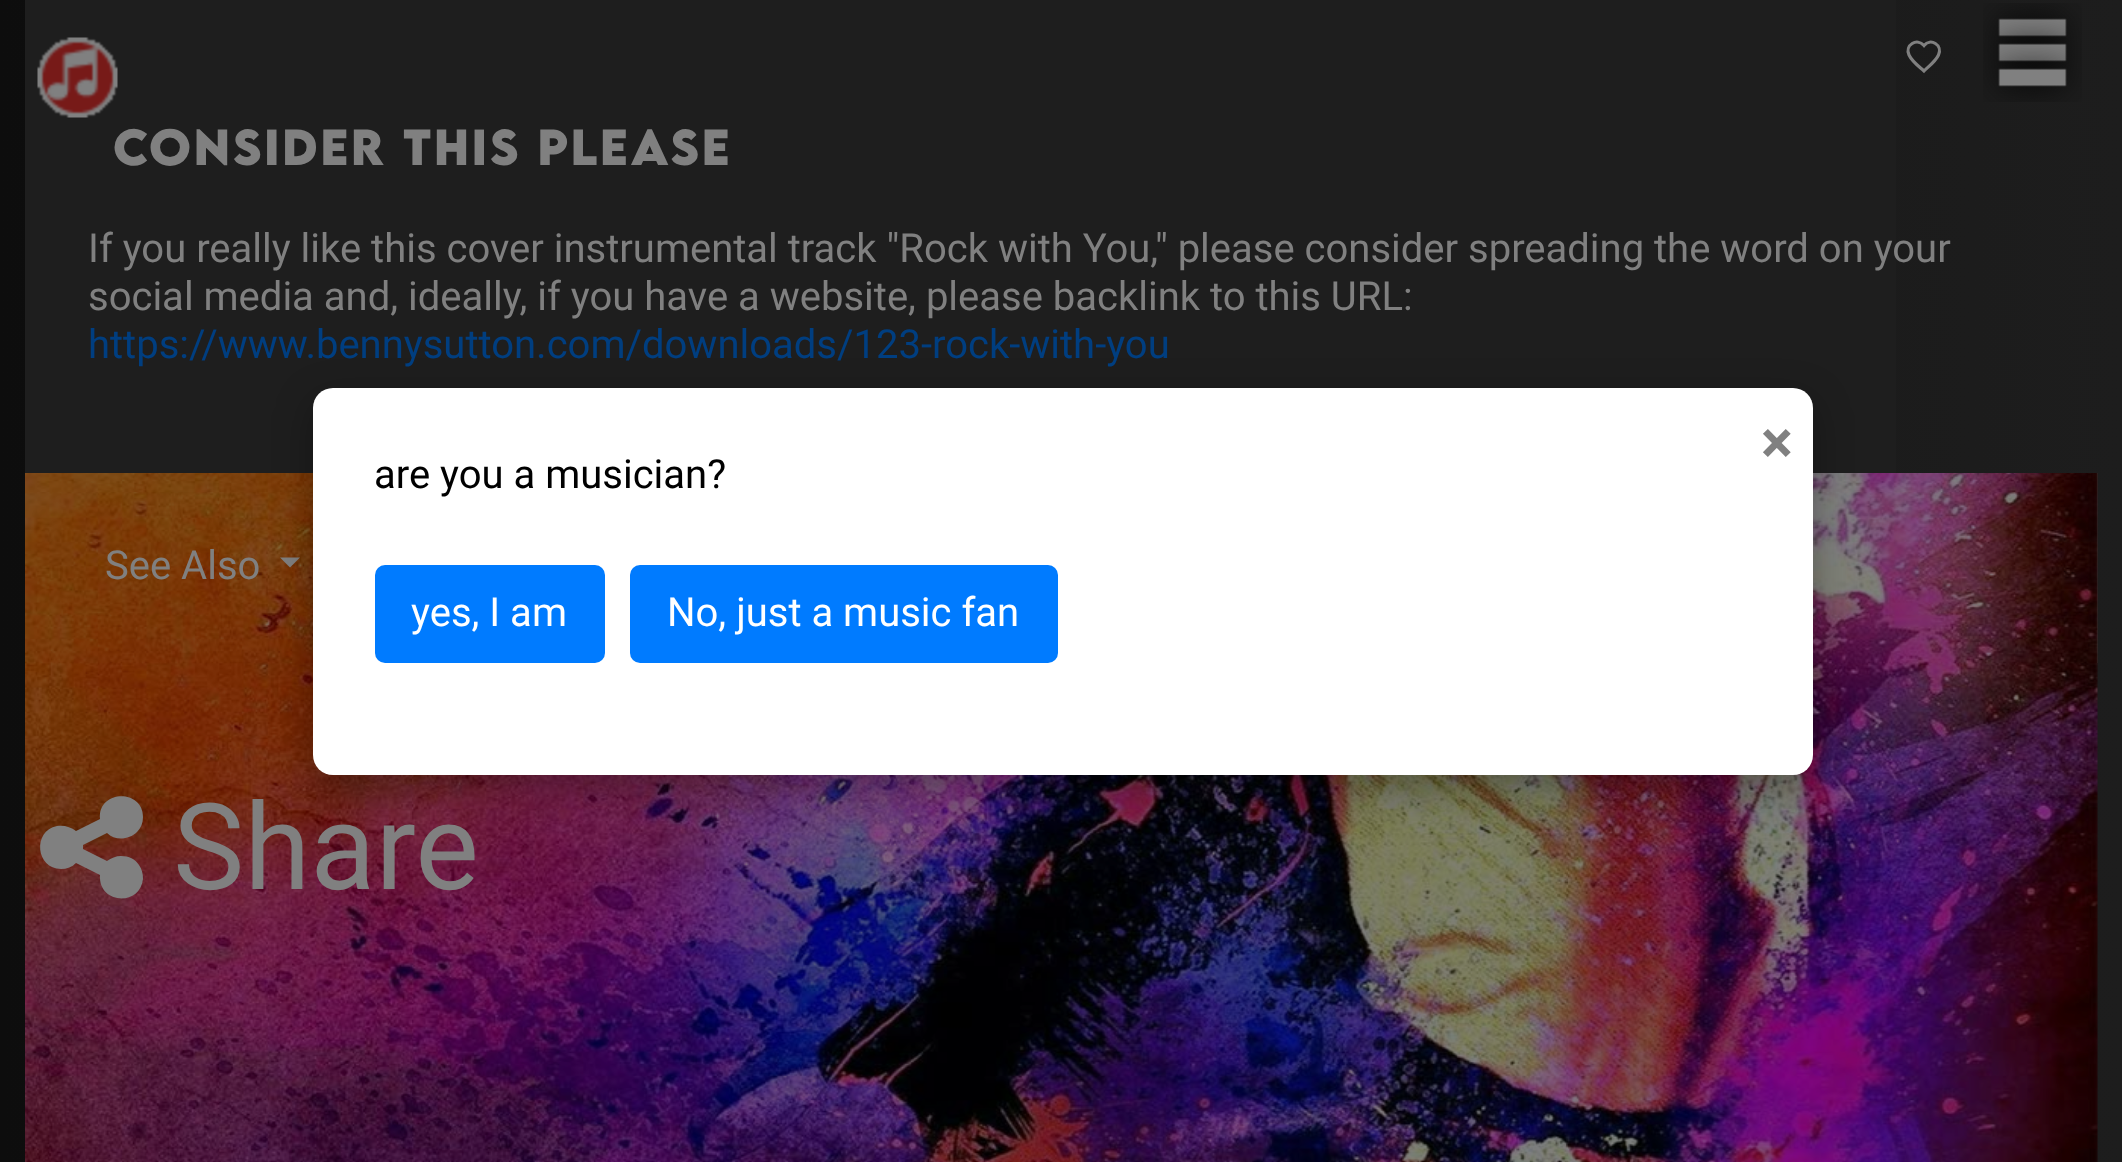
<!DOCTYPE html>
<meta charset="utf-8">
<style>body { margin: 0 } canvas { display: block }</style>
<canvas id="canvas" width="2122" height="1162"></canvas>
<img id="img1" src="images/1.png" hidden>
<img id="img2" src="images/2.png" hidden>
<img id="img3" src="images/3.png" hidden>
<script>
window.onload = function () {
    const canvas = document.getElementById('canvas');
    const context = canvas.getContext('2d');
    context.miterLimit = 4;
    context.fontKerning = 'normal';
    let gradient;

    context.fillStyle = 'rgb(255, 255, 255)';
    context.fillRect(0, 0, 2122, 1162);
    gradient = context.createLinearGradient(0, -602, 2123, -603);
    gradient.addColorStop(0, 'rgb(13, 13, 13)');
    gradient.addColorStop(0.5, 'rgb(22, 22, 22)');
    gradient.addColorStop(1, 'rgb(29, 29, 29)');
    context.fillStyle = gradient;
    context.fillRect(0, 0, 2122, 1162);
    context.fillStyle = 'rgb(30, 30, 30)';
    context.fillRect(25, 0, 1871, 473);
    context.drawImage(document.getElementById('img1'), 37, 37, 81, 81);
    context.beginPath();
    context.moveTo(1924, 71);
    context.bezierCurveTo(1919, 66.5, 1912, 61.5, 1909, 55);
    context.bezierCurveTo(1904.5, 45, 1917, 37.5, 1924, 45.5);
    context.bezierCurveTo(1930.5, 37.5, 1943, 45, 1938.5, 55);
    context.bezierCurveTo(1935.5, 61.5, 1928.5, 66.5, 1924, 71);
    context.closePath();
    context.strokeStyle = 'rgb(128, 128, 128)';
    context.lineWidth = 3.1;
    context.stroke();
    context.drawImage(document.getElementById('img2'), 1983, 3, 99, 99);
    context.fillStyle = 'rgb(54, 54, 54)';
    context.fillRect(2096, 473, 2, 190);
    context.drawImage(document.getElementById('img3'), 25, 473, 2073, 689);
    context.fillStyle = 'rgb(128, 128, 128)';
    context.beginPath();
    context.moveTo(280, 557.5);
    context.lineTo(300, 557.5);
    context.lineTo(290, 567.5);
    context.closePath();
    context.fill();
    context.beginPath();
    context.moveTo(121, 856);
    context.bezierCurveTo(129, 856, 135, 859, 139, 865);
    context.bezierCurveTo(142, 869, 143, 874, 143, 879);
    context.bezierCurveTo(140, 907, 98, 904, 100, 875);
    context.lineTo(76, 863);
    context.bezierCurveTo(72, 867, 67, 869, 61, 869);
    context.bezierCurveTo(36, 869, 32, 831, 57, 826);
    context.bezierCurveTo(64, 825, 71, 827, 76, 831);
    context.lineTo(100, 819);
    context.bezierCurveTo(97, 790, 143, 788, 143, 817);
    context.bezierCurveTo(143, 823, 141, 828, 137, 832);
    context.bezierCurveTo(129, 840, 115, 841, 107, 833);
    context.lineTo(83, 845);
    context.lineTo(83, 849);
    context.lineTo(107, 861);
    context.bezierCurveTo(111, 858, 116, 856, 121, 856);
    context.closePath();
    context.fill();
    context.fillStyle = 'rgba(0, 0, 0, 0.3)';
    context.filter = 'blur(19px)';
    context.beginPath();
    context.roundRect(313, 400, 1500, 388, 20);
    context.fill();
    context.filter = 'none';
    context.fillStyle = 'rgb(255, 255, 255)';
    context.beginPath();
    context.roundRect(313, 388, 1500, 387, 20);
    context.fill();
    context.fillStyle = 'rgb(0, 123, 255)';
    context.beginPath();
    context.roundRect(375, 565, 230, 98, 10);
    context.fill();
    context.beginPath();
    context.roundRect(630, 565, 428, 98, 10);
    context.fill();
    context.letterSpacing = '2.5px';
    context.font = 'bold 45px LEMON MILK';
    context.fillStyle = 'rgb(128, 128, 128)';
    context.fillText('Consider this please', 113, 165);
    context.letterSpacing = '0px';
    context.font = '40px Roboto';
    context.fillText('If you really like this cover instrumental track "Rock with You," please consider spreading the word on your', 88, 262);
    context.fillText('social media and, ideally, if you have a website, please backlink to this URL:', 88, 310);
    context.fillStyle = 'rgb(0, 62, 128)';
    context.fillText('https://www.bennysutton.com/downloads/123-rock-with-you', 88, 358);
    context.fillStyle = 'rgb(128, 128, 128)';
    context.fillText('See Also', 105, 579);
    context.font = '120px Roboto';
    context.fillText('Share', 173, 889);
    context.font = 'bold 60px Roboto';
    context.fillText('×', 1761, 463);
    context.font = '40px Roboto';
    context.fillStyle = 'rgb(0, 0, 0)';
    context.fillText('are you a musician?', 374, 488);
    context.fillStyle = 'rgb(255, 255, 255)';
    context.fillText('yes, I am', 411, 626);
    context.fillText('No, just a music fan', 667, 626);
};
</script>
